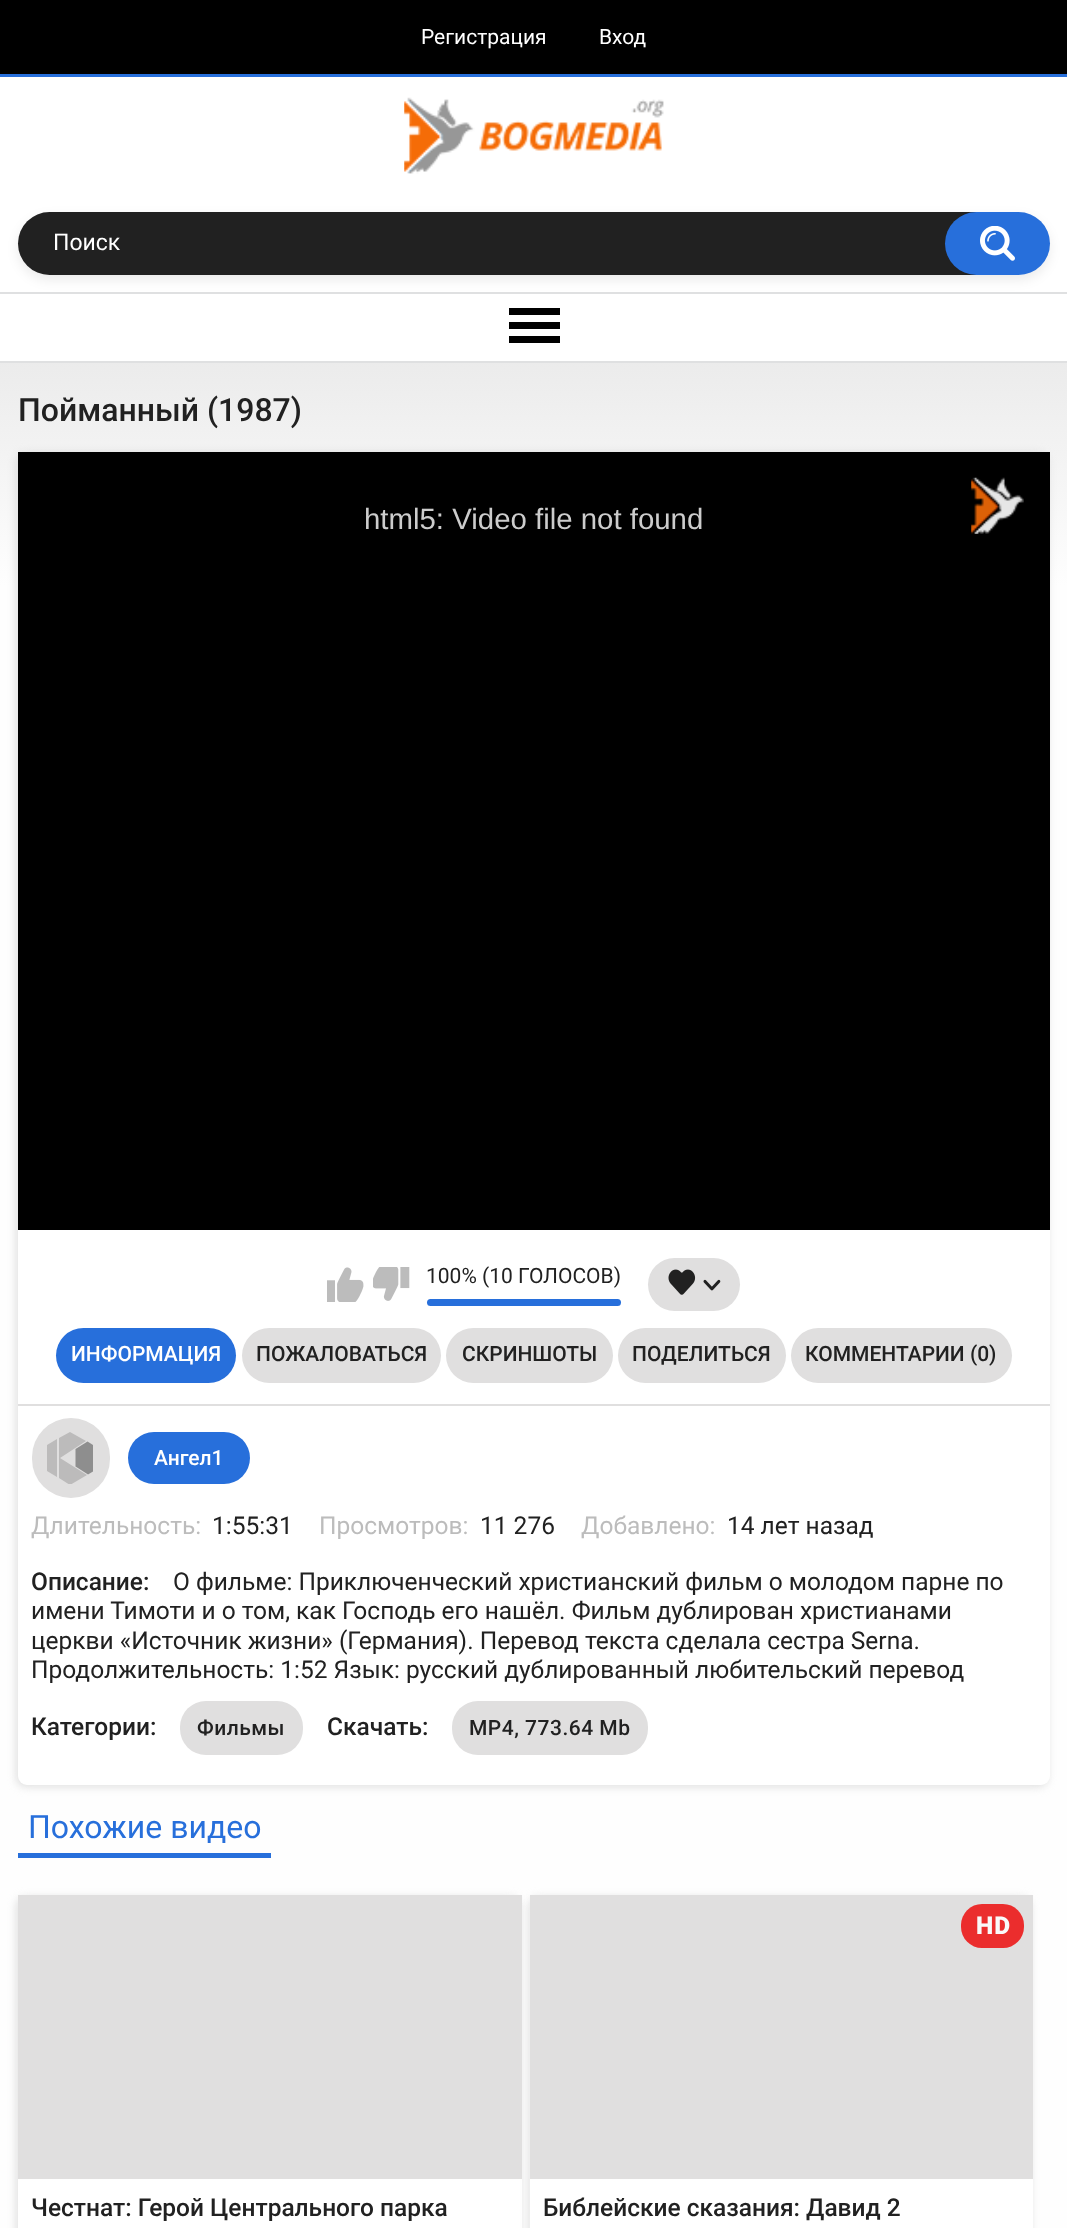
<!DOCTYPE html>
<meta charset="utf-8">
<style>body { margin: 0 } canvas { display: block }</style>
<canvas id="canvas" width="1067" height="2228"></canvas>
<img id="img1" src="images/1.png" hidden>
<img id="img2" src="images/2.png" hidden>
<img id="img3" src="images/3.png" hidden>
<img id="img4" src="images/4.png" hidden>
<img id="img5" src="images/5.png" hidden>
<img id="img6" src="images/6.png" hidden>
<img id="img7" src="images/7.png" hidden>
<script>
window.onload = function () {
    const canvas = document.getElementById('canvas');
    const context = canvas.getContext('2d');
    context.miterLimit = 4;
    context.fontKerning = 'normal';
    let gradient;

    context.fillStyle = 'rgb(0, 0, 0)';
    context.fillRect(0, 0, 1067, 2228);
    context.fillStyle = 'rgb(39, 111, 219)';
    context.fillRect(0, 74, 1067, 3);
    gradient = context.createLinearGradient(534, 77, 534, 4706);
    gradient.addColorStop(0.05, 'rgb(231, 231, 231)');
    gradient.addColorStop(0.11, 'rgb(254, 254, 254)');
    context.fillStyle = gradient;
    context.fillRect(0, 363, 1067, 1865);
    context.fillStyle = 'rgb(255, 255, 255)';
    context.fillRect(0, 77, 1067, 215);
    context.drawImage(document.getElementById('img1'), 404, 97, 260, 77);
    context.fillRect(0, 294, 1067, 67);
    context.fillStyle = 'rgb(223, 224, 225)';
    context.fillRect(0, 292, 1067, 2);
    context.fillStyle = 'rgba(0, 0, 0, 0.08)';
    context.filter = 'blur(6px)';
    context.beginPath();
    context.roundRect(18, 217, 1032, 63, 31.5);
    context.fill();
    context.filter = 'none';
    context.fillStyle = 'rgb(33, 33, 33)';
    context.beginPath();
    context.roundRect(18, 212, 1015, 63, 31.5);
    context.fill();
    context.fillStyle = 'rgb(39, 111, 219)';
    context.beginPath();
    context.roundRect(945, 212, 105, 63, 31.5);
    context.fill();
    context.drawImage(document.getElementById('img2'), 980, 226, 35, 35);
    context.fillStyle = 'rgb(223, 224, 225)';
    context.fillRect(0, 361, 1067, 2);
    context.fillStyle = 'rgb(0, 0, 0)';
    context.fillRect(509, 308, 51, 7);
    context.fillRect(509, 322, 51, 7);
    context.fillRect(509, 336, 51, 7);
    context.fillStyle = 'rgba(207, 207, 207, 0.65)';
    context.filter = 'blur(4.5px)';
    context.beginPath();
    context.roundRect(16, 453, 1032, 1334, 9);
    context.fill();
    context.filter = 'none';
    context.fillStyle = 'rgb(255, 255, 255)';
    context.beginPath();
    context.roundRect(18, 452, 1032, 1333, [0, 0, 9, 9]);
    context.fill();
    context.fillStyle = 'rgb(0, 0, 0)';
    context.fillRect(18, 452, 1032, 778);
    context.drawImage(document.getElementById('img3'), 971, 477, 53, 57);
    context.fillStyle = 'rgb(224, 223, 223)';
    context.fillRect(18, 1404, 1032, 2);
    context.drawImage(document.getElementById('img4'), 327, 1267, 37, 35);
    context.drawImage(document.getElementById('img5'), 373, 1267, 37, 34);
    context.fillStyle = 'rgb(39, 111, 219)';
    context.beginPath();
    context.roundRect(427, 1299, 194, 7, 3.5);
    context.fill();
    context.fillStyle = 'rgb(224, 223, 223)';
    context.beginPath();
    context.roundRect(648, 1258, 92, 53, 26.5);
    context.fill();
    context.drawImage(document.getElementById('img6'), 668, 1269, 28, 26);
    context.drawImage(document.getElementById('img7'), 703, 1279, 18, 12);
    context.fillStyle = 'rgb(39, 111, 219)';
    context.beginPath();
    context.roundRect(56, 1328, 180, 55, 27.5);
    context.fill();
    context.fillStyle = 'rgb(224, 223, 223)';
    context.beginPath();
    context.roundRect(242, 1328, 199, 55, 27.5);
    context.fill();
    context.beginPath();
    context.roundRect(446, 1328, 167, 55, 27.5);
    context.fill();
    context.beginPath();
    context.roundRect(618, 1328, 168, 55, 27.5);
    context.fill();
    context.beginPath();
    context.roundRect(791, 1328, 221, 55, 27.5);
    context.fill();
    context.beginPath();
    context.roundRect(32, 1418, 78, 80, 39);
    context.fill();
    context.save();
    context.beginPath();
    context.rect(47, 1432, 48, 52);
    context.clip();
    context.fillStyle = 'rgb(188, 187, 187)';
    context.beginPath();
    context.moveTo(70, 1485);
    context.lineTo(59, 1478);
    context.lineTo(59, 1438);
    context.lineTo(70, 1432);
    context.lineTo(86, 1441);
    context.lineTo(60, 1458);
    context.lineTo(87, 1475);
    context.closePath();
    context.moveTo(47, 1471);
    context.lineTo(47, 1445);
    context.lineTo(57, 1439);
    context.lineTo(57, 1477);
    context.closePath();
    context.fill();
    context.restore();
    context.fillStyle = 'rgb(142, 142, 142)';
    context.beginPath();
    context.moveTo(75.5, 1449);
    context.lineTo(87.5, 1441.5);
    context.lineTo(93, 1445);
    context.lineTo(93, 1471.5);
    context.lineTo(88, 1474.5);
    context.lineTo(75.5, 1466.5);
    context.closePath();
    context.fill();
    context.fillStyle = 'rgb(39, 111, 219)';
    context.beginPath();
    context.roundRect(128, 1432, 122, 52, 26);
    context.fill();
    context.fillStyle = 'rgb(224, 223, 223)';
    context.beginPath();
    context.roundRect(180, 1701, 123, 54, 26);
    context.fill();
    context.beginPath();
    context.roundRect(452, 1701, 196, 54, 26);
    context.fill();
    context.fillStyle = 'rgb(39, 111, 219)';
    context.fillRect(18, 1853, 253, 5);
    context.fillStyle = 'rgba(207, 207, 207, 0.65)';
    context.filter = 'blur(4.5px)';
    context.beginPath();
    context.roundRect(16, 1897, 504, 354, 9);
    context.fill();
    context.filter = 'none';
    context.fillStyle = 'rgb(255, 255, 255)';
    context.fillRect(18, 2179, 504, 49);
    context.fillStyle = 'rgba(207, 207, 207, 0.65)';
    context.filter = 'blur(4.5px)';
    context.beginPath();
    context.roundRect(529, 1897, 502, 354, 9);
    context.fill();
    context.filter = 'none';
    context.fillStyle = 'rgb(224, 223, 223)';
    context.fillRect(18, 1895, 504, 284);
    context.fillStyle = 'rgb(255, 255, 255)';
    context.fillRect(530, 2179, 503, 49);
    context.fillStyle = 'rgb(224, 223, 223)';
    context.fillRect(530, 1895, 503, 284);
    context.fillStyle = 'rgb(235, 45, 45)';
    context.beginPath();
    context.roundRect(961, 1904, 63, 44, 21);
    context.fill();
    context.font = '21px Roboto';
    context.fillStyle = 'rgb(255, 255, 255)';
    context.fillText('Регистрация', 421, 44);
    context.fillText('Вход', 599, 44);
    context.font = '23px Roboto';
    context.fillText('Поиск', 53, 250);
    context.font = '500 32px Roboto';
    context.fillStyle = 'rgb(33, 33, 33)';
    context.fillText('Пойманный (1987)', 18, 421);
    context.font = '29.4px Liberation Sans';
    context.fillStyle = 'rgb(204, 204, 204)';
    context.fillText('html5: Video file not found', 364, 529);
    context.font = '21px Roboto';
    context.fillStyle = 'rgb(33, 33, 33)';
    context.fillText('100% (10 ГОЛОСОВ)', 426, 1283);
    context.font = '500 21px Roboto';
    context.fillStyle = 'rgb(255, 255, 255)';
    context.fillText('ИНФОРМАЦИЯ', 71, 1361);
    context.fillStyle = 'rgb(33, 33, 33)';
    context.fillText('ПОЖАЛОВАТЬСЯ', 256, 1361);
    context.fillText('СКРИНШОТЫ', 462, 1361);
    context.fillText('ПОДЕЛИТЬСЯ', 632, 1361);
    context.fillText('КОММЕНТАРИИ (0)', 805, 1361);
    context.fillStyle = 'rgb(255, 255, 255)';
    context.fillText('Ангел1', 154, 1465);
    context.font = '24.5px Roboto';
    context.fillStyle = 'rgb(188, 188, 188)';
    context.fillText('Длительность:', 31, 1534);
    context.fillStyle = 'rgb(33, 33, 33)';
    context.fillText('1:55:31', 212, 1534);
    context.fillStyle = 'rgb(188, 188, 188)';
    context.fillText('Просмотров:', 319, 1534);
    context.fillStyle = 'rgb(33, 33, 33)';
    context.fillText('11 276', 480, 1534);
    context.fillStyle = 'rgb(188, 188, 188)';
    context.fillText('Добавлено:', 581, 1534);
    context.fillStyle = 'rgb(33, 33, 33)';
    context.fillText('14 лет назад', 727, 1534);
    context.font = '500 24.5px Roboto';
    context.fillText('Описание:', 31, 1590);
    context.font = '24.5px Roboto';
    context.fillText('О фильме: Приключенческий христианский фильм о молодом парне по', 173, 1590);
    context.fillText('имени Тимоти и о том, как Господь его нашёл. Фильм дублирован христианами', 31, 1619);
    context.fillText('церкви «Источник жизни» (Германия). Перевод текста сделала сестра Serna.', 31, 1649);
    context.fillText('Продолжительность: 1:52 Язык: русский дублированный любительский перевод', 31, 1678);
    context.font = '500 24.5px Roboto';
    context.fillText('Категории:', 31, 1735);
    context.letterSpacing = '0.5px';
    context.font = '500 21px Roboto';
    context.fillText('Фильмы', 197, 1735);
    context.letterSpacing = '0px';
    context.font = '500 24.5px Roboto';
    context.fillText('Скачать:', 327, 1735);
    context.letterSpacing = '0.5px';
    context.font = '500 21px Roboto';
    context.fillText('MP4, 773.64 Mb', 469, 1735);
    context.letterSpacing = '0px';
    context.font = '32px Roboto';
    context.fillStyle = 'rgb(39, 111, 219)';
    context.fillText('Похожие видео', 28, 1838);
    context.font = '500 24.5px Roboto';
    context.fillStyle = 'rgb(33, 33, 33)';
    context.fillText('Честнат: Герой Центрального парка', 31, 2216);
    context.letterSpacing = '1px';
    context.font = '900 24.5px Roboto';
    context.fillStyle = 'rgb(249, 249, 249)';
    context.fillText('HD', 976, 1934);
    context.letterSpacing = '0px';
    context.font = '500 24.5px Roboto';
    context.fillStyle = 'rgb(33, 33, 33)';
    context.fillText('Библейские сказания: Давид 2', 543, 2216);
};
</script>
